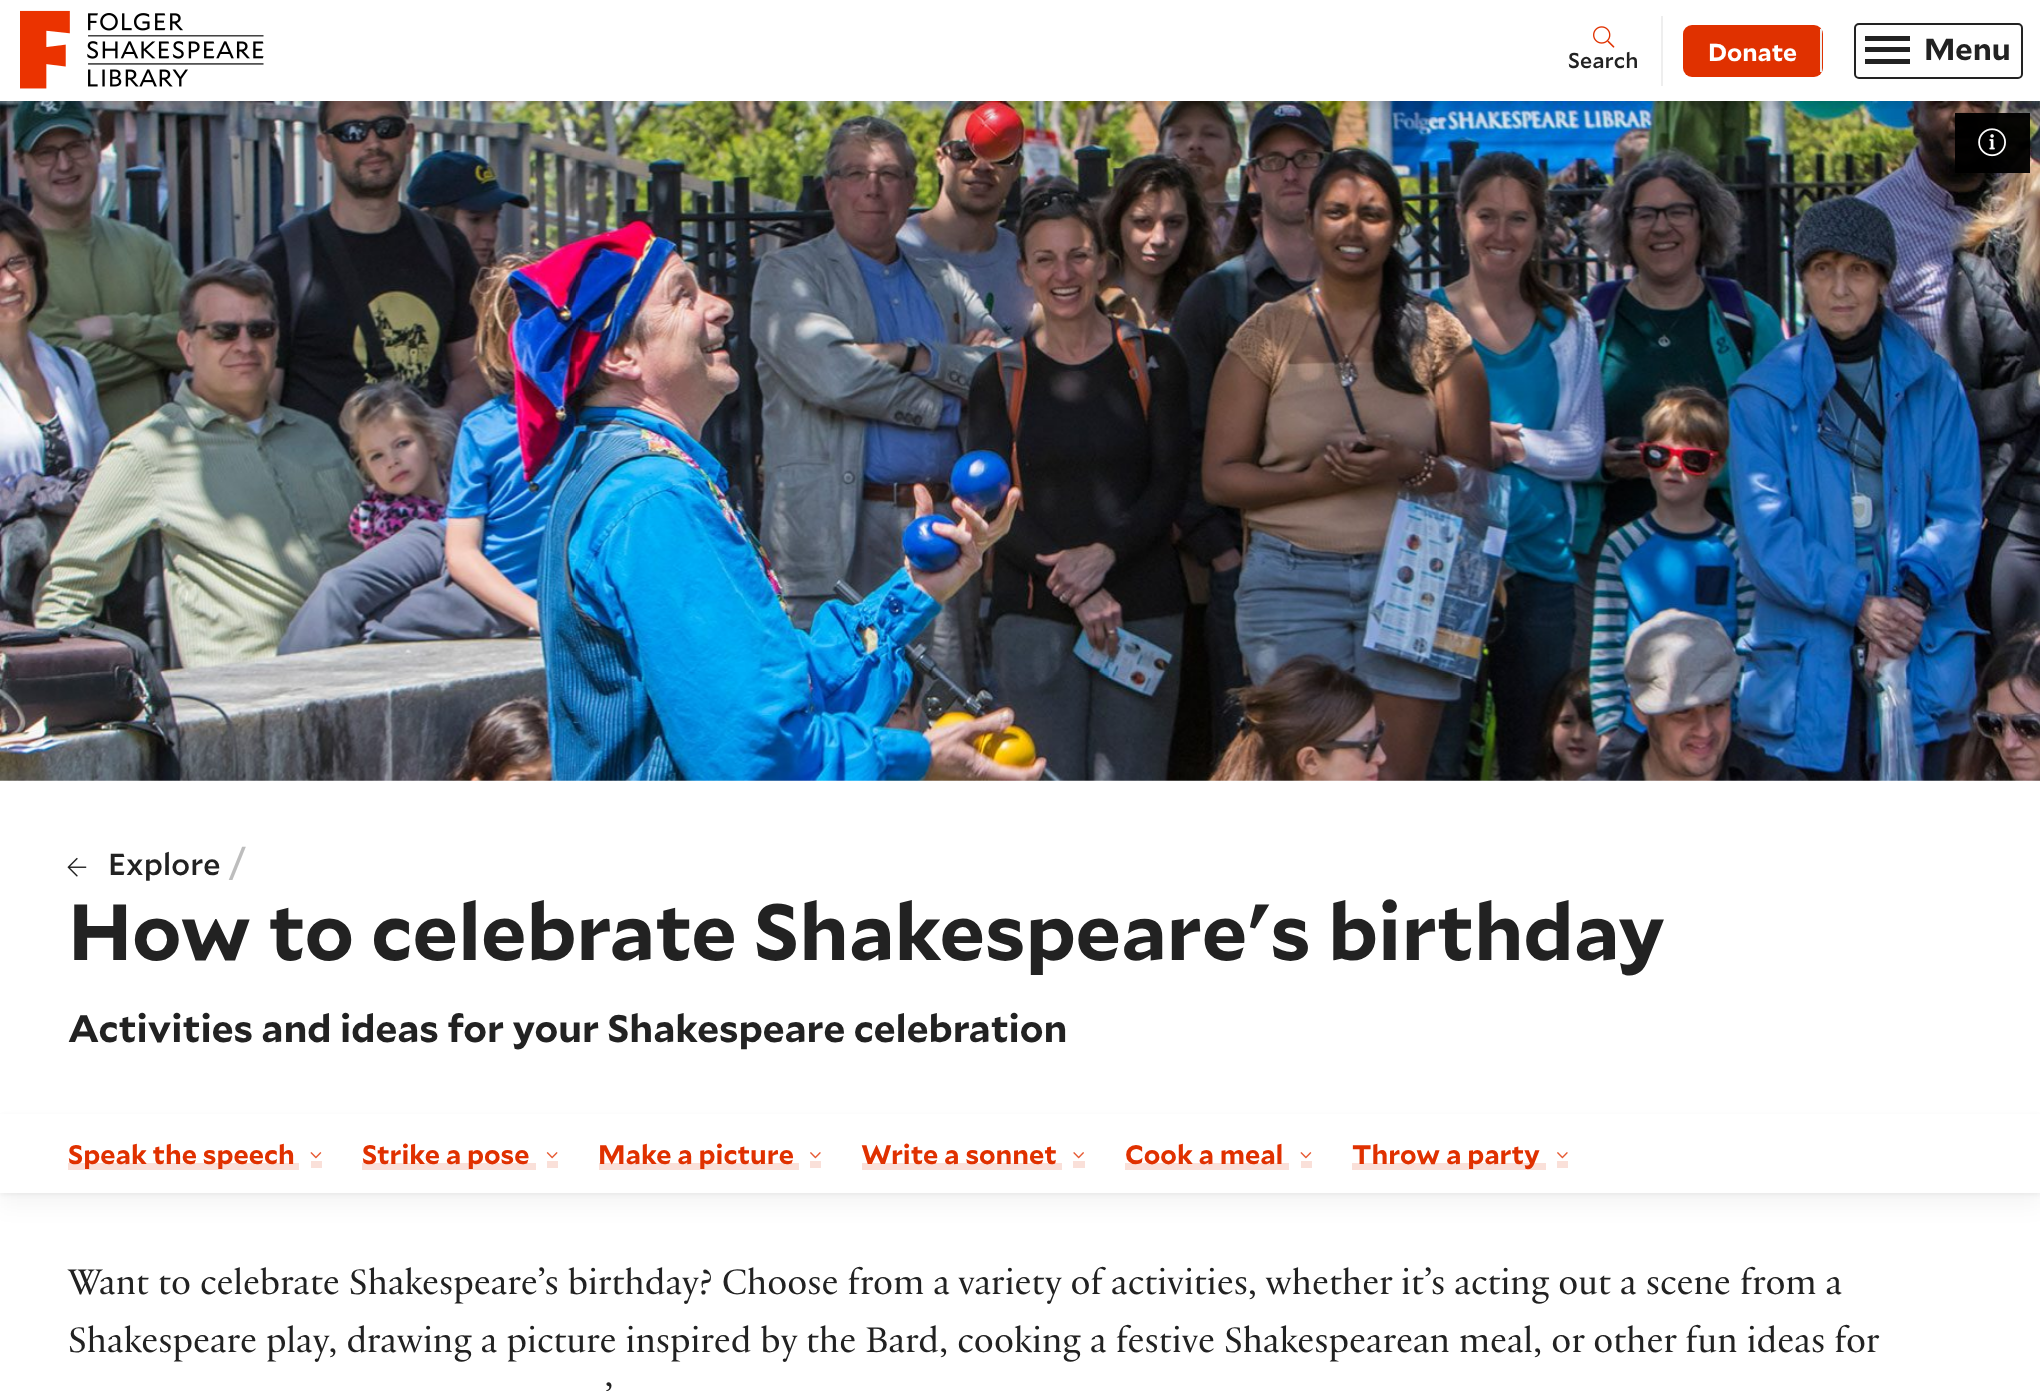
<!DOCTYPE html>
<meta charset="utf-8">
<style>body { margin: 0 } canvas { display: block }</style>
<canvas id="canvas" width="2040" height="1391"></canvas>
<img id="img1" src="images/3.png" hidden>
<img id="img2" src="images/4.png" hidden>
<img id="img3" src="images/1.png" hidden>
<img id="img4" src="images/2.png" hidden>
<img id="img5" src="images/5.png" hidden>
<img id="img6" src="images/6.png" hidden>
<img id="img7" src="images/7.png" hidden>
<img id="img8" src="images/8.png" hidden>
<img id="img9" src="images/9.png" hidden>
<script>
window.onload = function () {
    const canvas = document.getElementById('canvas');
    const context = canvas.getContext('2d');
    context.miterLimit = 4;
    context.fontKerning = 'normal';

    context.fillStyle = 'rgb(255, 255, 255)';
    context.fillRect(0, 0, 2040, 1391);
    context.drawImage(document.getElementById('img1'), 0, 101, 2040, 680);
    context.fillStyle = 'rgba(0, 0, 0, 0.8)';
    context.fillRect(1955, 113, 75, 60);
    context.fillRect(1955, 113, 75, 60);
    context.drawImage(document.getElementById('img2'), 1978, 128, 28, 29);
    context.save();
    context.beginPath();
    context.rect(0, 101, 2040, 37);
    context.clip();
    context.fillStyle = 'rgba(0, 0, 0, 0.06)';
    context.filter = 'blur(16px)';
    context.beginPath();
    context.rect(0, 29, 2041, 102);
    context.fill();
    context.filter = 'none';
    context.restore();
    context.save();
    context.beginPath();
    context.rect(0, 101, 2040, 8);
    context.clip();
    context.fillStyle = 'rgba(0, 0, 0, 0.09)';
    context.filter = 'blur(3.5px)';
    context.beginPath();
    context.rect(0, 5, 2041, 101);
    context.fill();
    context.filter = 'none';
    context.restore();
    context.drawImage(document.getElementById('img3'), 20, 10, 244, 79);
    context.fillStyle = 'rgb(238, 238, 238)';
    context.fillRect(1661, 16, 2, 70);
    context.drawImage(document.getElementById('img4'), 1593, 26, 22, 22);
    context.fillStyle = 'rgb(224, 49, 0)';
    context.beginPath();
    context.roundRect(1683, 25, 140, 52, 9);
    context.fill();
    context.fillStyle = 'rgb(238, 238, 238)';
    context.fillRect(1820, 29, 2, 43);
    context.beginPath();
    context.roundRect(1855, 24, 167, 54, 4);
    context.strokeStyle = 'rgb(34, 34, 34)';
    context.lineWidth = 2;
    context.stroke();
    context.fillStyle = 'rgb(34, 34, 34)';
    context.fillRect(1865, 36, 45, 5);
    context.fillRect(1865, 47, 45, 5);
    context.fillRect(1865, 59, 45, 5);
    context.drawImage(document.getElementById('img5'), 67, 857, 20, 20);
    context.fillStyle = 'rgba(0, 0, 0, 0.04)';
    context.filter = 'blur(11px)';
    context.beginPath();
    context.rect(0, 1127, 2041, 79);
    context.fill();
    context.filter = 'none';
    context.fillStyle = 'rgba(0, 0, 0, 0.05)';
    context.filter = 'blur(2px)';
    context.beginPath();
    context.rect(0, 1116, 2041, 79);
    context.fill();
    context.filter = 'none';
    context.fillStyle = 'rgb(255, 255, 255)';
    context.fillRect(0, 1114, 2040, 79);
    context.fillStyle = 'rgb(250, 224, 217)';
    context.fillRect(68, 1163, 231, 7);
    context.fillRect(311, 1161, 11, 7);
    context.drawImage(document.getElementById('img6'), 310, 1152, 12, 7);
    context.fillRect(362, 1163, 174, 7);
    context.fillRect(547, 1161, 11, 7);
    context.drawImage(document.getElementById('img7'), 546, 1152, 12, 7);
    context.fillRect(599, 1163, 200, 7);
    context.fillRect(810, 1161, 11, 7);
    context.drawImage(document.getElementById('img8'), 810, 1152, 11, 7);
    context.fillRect(862, 1163, 200, 7);
    context.fillRect(1073, 1161, 12, 7);
    context.drawImage(document.getElementById('img9'), 1073, 1152, 11, 7);
    context.fillRect(1125, 1163, 164, 7);
    context.fillRect(1301, 1161, 11, 7);
    context.drawImage(document.getElementById('img6'), 1300, 1152, 12, 7);
    context.fillRect(1352, 1163, 194, 7);
    context.fillRect(1557, 1161, 11, 7);
    context.drawImage(document.getElementById('img8'), 1557, 1152, 11, 7);
    context.font = '500 21.5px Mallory';
    context.fillStyle = 'rgb(34, 34, 34)';
    context.fillText('Search', 1568, 68);
    context.font = 'bold 24.5px Mallory';
    context.fillStyle = 'rgb(255, 255, 255)';
    context.fillText('Donate', 1708, 61);
    context.font = 'bold 30.5px Mallory';
    context.fillStyle = 'rgb(34, 34, 34)';
    context.fillText('Menu', 1924, 60);
    context.font = '500 30.5px Mallory';
    context.fillText('Explore', 108, 875);
    context.font = '500 38.25px Mallory';
    context.fillStyle = 'rgb(189, 189, 189)';
    context.fillText('/', 229, 875);
    context.font = 'bold 79.3px Mallory';
    context.fillStyle = 'rgb(34, 34, 34)';
    context.fillText('How to celebrate Shakespeare\'s birthday', 68, 960);
    context.font = 'bold 38.25px Mallory';
    context.fillText('Activities and ideas for your Shakespeare celebration', 68, 1042);
    context.font = 'bold 26.75px Mallory';
    context.fillStyle = 'rgb(224, 49, 0)';
    context.fillText('Speak the speech', 68, 1164);
    context.fillText('Strike a pose', 362, 1164);
    context.fillText('Make a picture', 598, 1164);
    context.fillText('Write a sonnet', 861, 1164);
    context.fillText('Cook a meal', 1125, 1164);
    context.fillText('Throw a party', 1352, 1164);
    context.font = '38.25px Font';
    context.fillStyle = 'rgb(34, 34, 34)';
    context.fillText('Want to celebrate Shakespeare’s birthday? Choose from a variety of activities, whether it’s acting out a scene from a', 68, 1294);
    context.fillText('Shakespeare play, drawing a picture inspired by the Bard, cooking a festive Shakespearean meal, or other fun ideas for', 68, 1352);
    context.fillText('’', 604, 1409);
};
</script>
